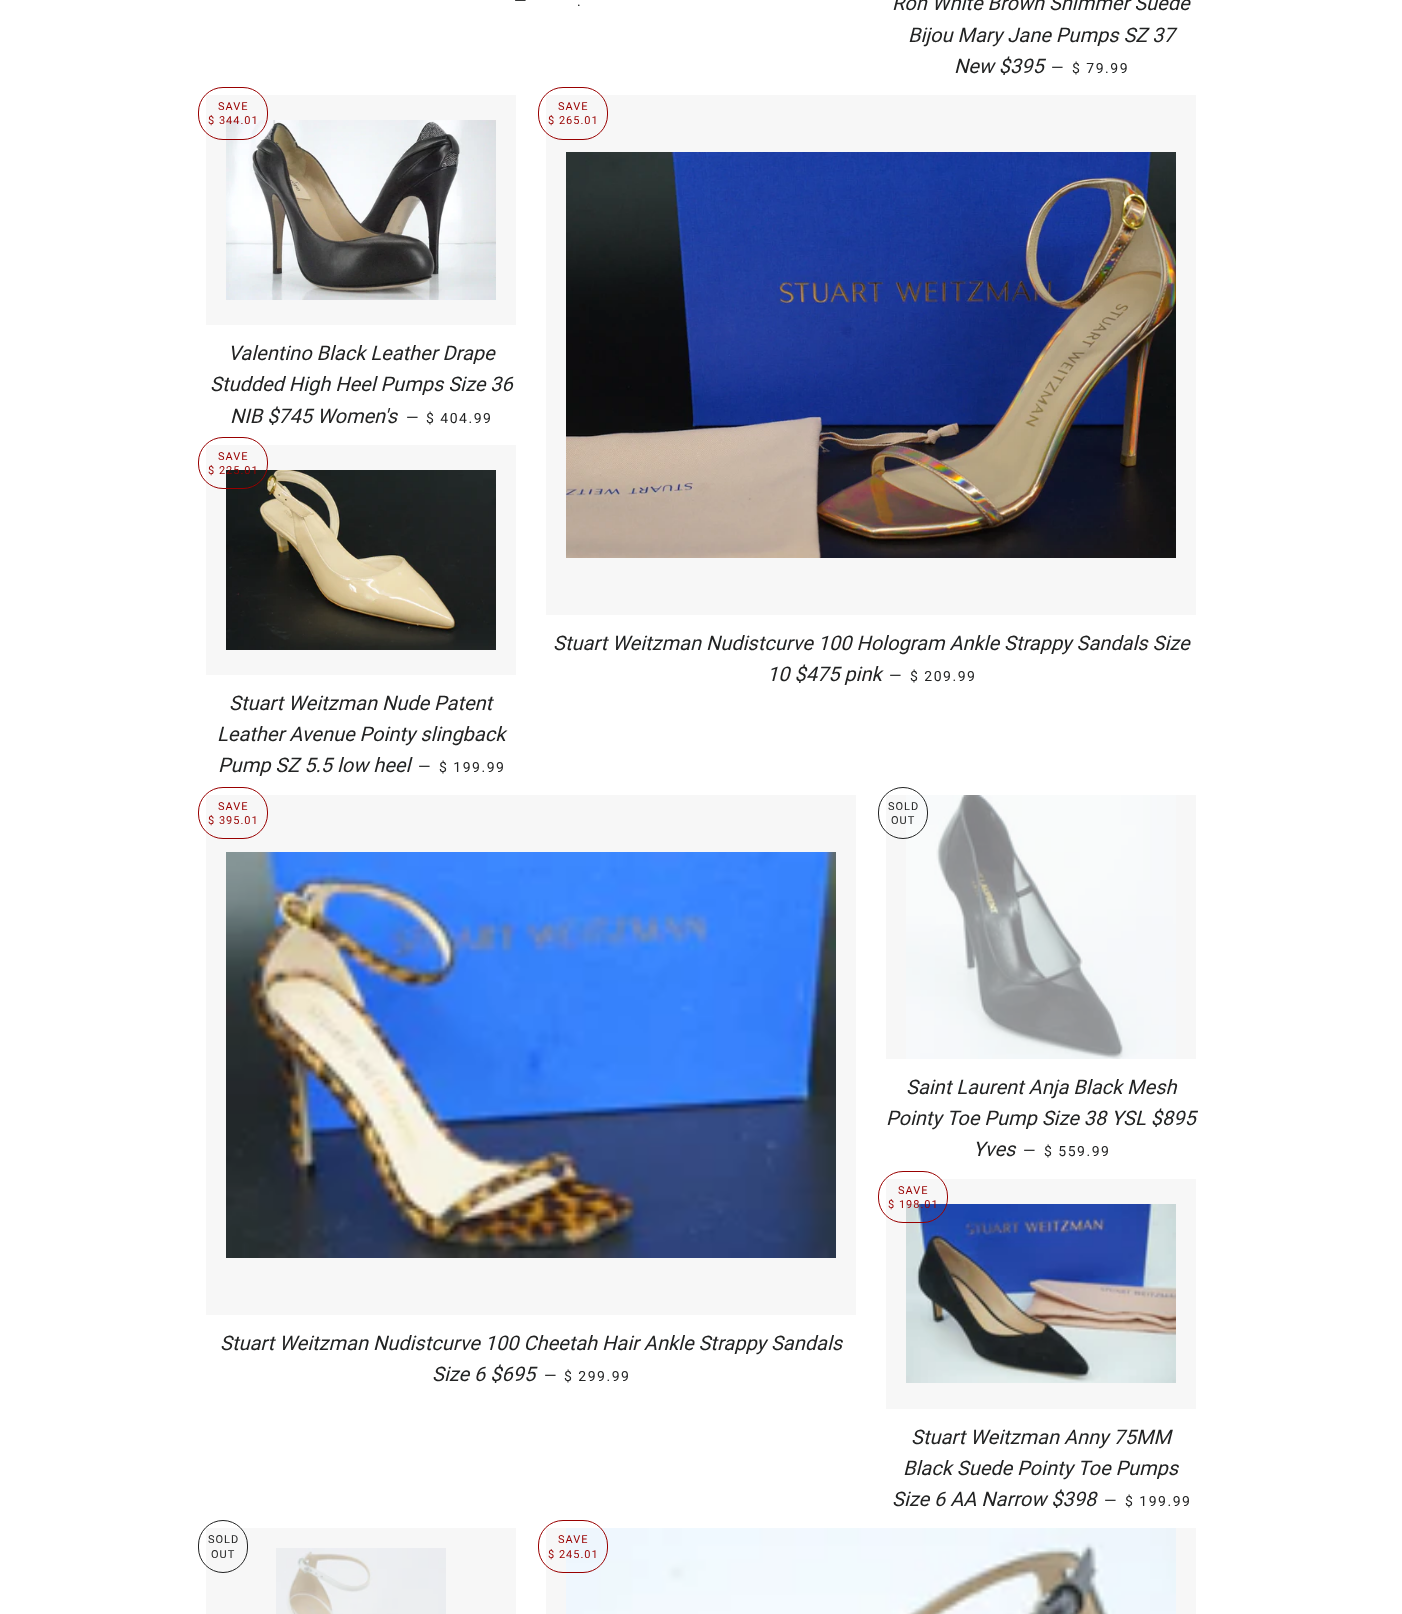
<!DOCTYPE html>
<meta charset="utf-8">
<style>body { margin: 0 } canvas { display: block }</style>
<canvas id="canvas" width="1402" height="1614"></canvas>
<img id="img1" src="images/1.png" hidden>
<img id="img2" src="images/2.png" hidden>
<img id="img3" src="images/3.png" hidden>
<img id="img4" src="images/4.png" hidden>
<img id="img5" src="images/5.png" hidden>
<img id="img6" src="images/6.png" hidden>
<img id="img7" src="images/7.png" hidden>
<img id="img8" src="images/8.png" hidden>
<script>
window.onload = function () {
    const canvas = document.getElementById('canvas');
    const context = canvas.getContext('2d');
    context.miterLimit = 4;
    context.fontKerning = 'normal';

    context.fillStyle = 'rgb(255, 255, 255)';
    context.fillRect(0, 0, 1402, 1614);
    context.fillStyle = 'rgb(247, 247, 247)';
    context.fillRect(206, 95, 310, 230);
    context.drawImage(document.getElementById('img1'), 226, 120, 270, 180);
    context.beginPath();
    context.roundRect(198.5, 87.5, 69, 52, 24.5);
    context.strokeStyle = 'rgb(153, 0, 0)';
    context.stroke();
    context.fillRect(206, 445, 310, 230);
    context.drawImage(document.getElementById('img2'), 226, 470, 270, 180);
    context.beginPath();
    context.roundRect(198.5, 437.5, 69, 51, 24.5);
    context.stroke();
    context.fillRect(546, 95, 650, 520);
    context.drawImage(document.getElementById('img3'), 566, 152, 610, 406);
    context.beginPath();
    context.roundRect(538.5, 87.5, 69, 52, 24.5);
    context.stroke();
    context.fillRect(206, 795, 650, 520);
    context.drawImage(document.getElementById('img4'), 226, 852, 610, 406);
    context.beginPath();
    context.roundRect(198.5, 787.5, 69, 51, 24.5);
    context.stroke();
    context.fillRect(886, 795, 310, 264);
    context.drawImage(document.getElementById('img5'), 906, 795, 270, 264);
    context.beginPath();
    context.roundRect(878.5, 787.5, 49, 51, 24.5);
    context.strokeStyle = 'rgb(34, 35, 35)';
    context.stroke();
    context.fillRect(886, 1179, 310, 230);
    context.drawImage(document.getElementById('img6'), 906, 1204, 270, 179);
    context.beginPath();
    context.roundRect(878.5, 1171.5, 69, 51, 24.5);
    context.strokeStyle = 'rgb(153, 0, 0)';
    context.stroke();
    context.fillRect(206, 1528, 310, 86);
    context.drawImage(document.getElementById('img7'), 276, 1548, 170, 66);
    context.beginPath();
    context.roundRect(198.5, 1520.5, 49, 52, 24.5);
    context.strokeStyle = 'rgb(34, 35, 35)';
    context.stroke();
    context.fillRect(546, 1528, 650, 86);
    context.drawImage(document.getElementById('img8'), 566, 1528, 610, 86);
    context.beginPath();
    context.roundRect(538.5, 1520.5, 69, 52, 24.5);
    context.strokeStyle = 'rgb(153, 0, 0)';
    context.stroke();
    context.font = '16px Roboto';
    context.fillStyle = 'rgb(34, 35, 35)';
    context.fillText('—', 514, 6);
    context.letterSpacing = '1.5px';
    context.font = '14px Roboto';
    context.fillText('.', 577, 6);
    context.letterSpacing = '0px';
    context.font = 'italic 20px Roboto';
    context.fillText('Ron White Brown Shimmer Suede', 892, 10);
    context.fillText('Bijou Mary Jane Pumps SZ 37', 908, 42);
    context.fillText('New $395', 954, 73);
    context.font = '16px Roboto';
    context.fillText('—', 1051, 73);
    context.letterSpacing = '1.5px';
    context.font = '14px Roboto';
    context.fillText('$ 79.99', 1072, 73);
    context.letterSpacing = '1px';
    context.font = '11px Roboto';
    context.fillStyle = 'rgb(153, 0, 0)';
    context.fillText('SAVE', 218, 110);
    context.fillText('$ 344.01', 208, 124);
    context.letterSpacing = '0px';
    context.font = 'italic 20px Roboto';
    context.fillStyle = 'rgb(34, 35, 35)';
    context.fillText('Valentino Black Leather Drape', 228, 360);
    context.fillText('Studded High Heel Pumps Size 36', 210, 391);
    context.fillText('NIB $745 Women\'s', 230, 423);
    context.font = '16px Roboto';
    context.fillText('—', 406, 423);
    context.letterSpacing = '1.5px';
    context.font = '14px Roboto';
    context.fillText('$ 404.99', 426, 423);
    context.letterSpacing = '1px';
    context.font = '11px Roboto';
    context.fillStyle = 'rgb(153, 0, 0)';
    context.fillText('SAVE', 218, 460);
    context.fillText('$ 225.01', 208, 474);
    context.letterSpacing = '0px';
    context.font = 'italic 20px Roboto';
    context.fillStyle = 'rgb(34, 35, 35)';
    context.fillText('Stuart Weitzman Nude Patent', 229, 710);
    context.fillText('Leather Avenue Pointy slingback', 217, 741);
    context.fillText('Pump SZ 5.5 low heel', 218, 772);
    context.font = '16px Roboto';
    context.fillText('—', 418, 772);
    context.letterSpacing = '1.5px';
    context.font = '14px Roboto';
    context.fillText('$ 199.99', 439, 772);
    context.letterSpacing = '1px';
    context.font = '11px Roboto';
    context.fillStyle = 'rgb(153, 0, 0)';
    context.fillText('SAVE', 558, 110);
    context.fillText('$ 265.01', 548, 124);
    context.letterSpacing = '0px';
    context.font = 'italic 20px Roboto';
    context.fillStyle = 'rgb(34, 35, 35)';
    context.fillText('Stuart Weitzman Nudistcurve 100 Hologram Ankle Strappy Sandals Size', 553, 650);
    context.fillText('10 $475 pink', 767, 681);
    context.font = '16px Roboto';
    context.fillText('—', 889, 681);
    context.letterSpacing = '1.5px';
    context.font = '14px Roboto';
    context.fillText('$ 209.99', 910, 681);
    context.letterSpacing = '1px';
    context.font = '11px Roboto';
    context.fillStyle = 'rgb(153, 0, 0)';
    context.fillText('SAVE', 218, 810);
    context.fillText('$ 395.01', 208, 824);
    context.letterSpacing = '0px';
    context.font = 'italic 20px Roboto';
    context.fillStyle = 'rgb(34, 35, 35)';
    context.fillText('Stuart Weitzman Nudistcurve 100 Cheetah Hair Ankle Strappy Sandals', 220, 1350);
    context.fillText('Size 6 $695', 432, 1381);
    context.font = '16px Roboto';
    context.fillText('—', 544, 1381);
    context.letterSpacing = '1.5px';
    context.font = '14px Roboto';
    context.fillText('$ 299.99', 564, 1381);
    context.letterSpacing = '1px';
    context.font = '11px Roboto';
    context.fillText('SOLD', 888, 810);
    context.fillText('OUT', 891, 824);
    context.letterSpacing = '0px';
    context.font = 'italic 20px Roboto';
    context.fillText('Saint Laurent Anja Black Mesh', 906, 1094);
    context.fillText('Pointy Toe Pump Size 38 YSL $895', 886, 1125);
    context.fillText('Yves', 973, 1156);
    context.font = '16px Roboto';
    context.fillText('—', 1023, 1156);
    context.letterSpacing = '1.5px';
    context.font = '14px Roboto';
    context.fillText('$ 559.99', 1044, 1156);
    context.letterSpacing = '1px';
    context.font = '11px Roboto';
    context.fillStyle = 'rgb(153, 0, 0)';
    context.fillText('SAVE', 898, 1194);
    context.fillText('$ 198.01', 888, 1208);
    context.letterSpacing = '0px';
    context.font = 'italic 20px Roboto';
    context.fillStyle = 'rgb(34, 35, 35)';
    context.fillText('Stuart Weitzman Anny 75MM', 911, 1444);
    context.fillText('Black Suede Pointy Toe Pumps', 903, 1475);
    context.fillText('Size 6 AA Narrow $398', 892, 1506);
    context.font = '16px Roboto';
    context.fillText('—', 1104, 1506);
    context.letterSpacing = '1.5px';
    context.font = '14px Roboto';
    context.fillText('$ 199.99', 1125, 1506);
    context.letterSpacing = '1px';
    context.font = '11px Roboto';
    context.fillText('SOLD', 208, 1543);
    context.fillText('OUT', 211, 1558);
    context.fillStyle = 'rgb(153, 0, 0)';
    context.fillText('SAVE', 558, 1543);
    context.fillText('$ 245.01', 548, 1558);
};
</script>
